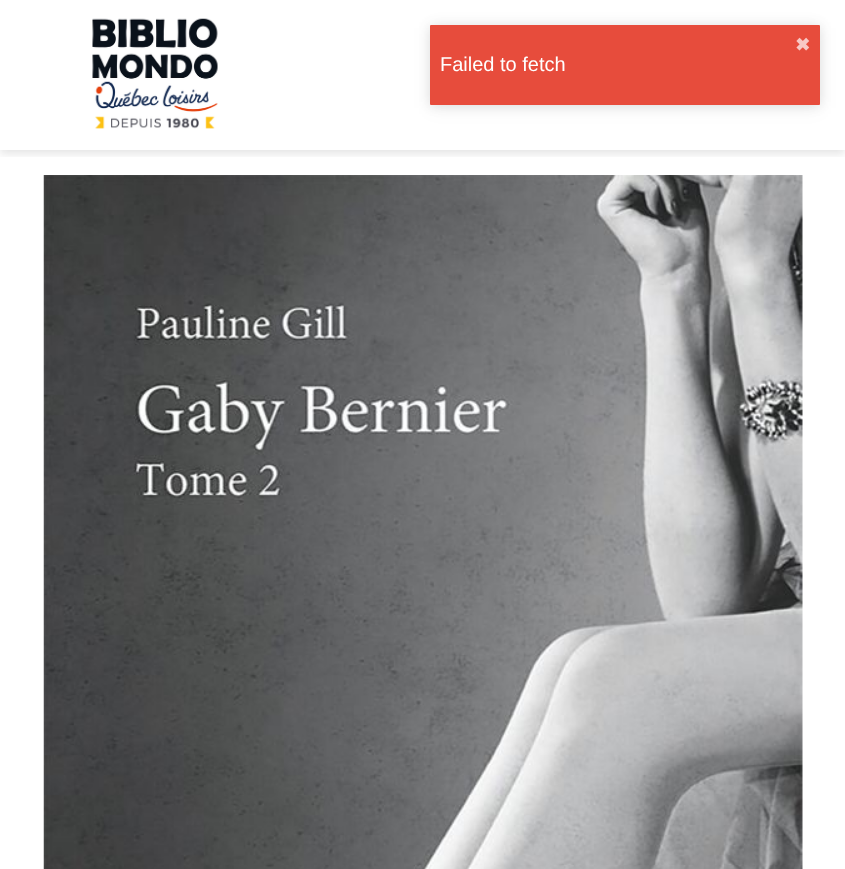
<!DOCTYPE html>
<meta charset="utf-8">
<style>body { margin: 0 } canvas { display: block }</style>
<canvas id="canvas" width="845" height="869"></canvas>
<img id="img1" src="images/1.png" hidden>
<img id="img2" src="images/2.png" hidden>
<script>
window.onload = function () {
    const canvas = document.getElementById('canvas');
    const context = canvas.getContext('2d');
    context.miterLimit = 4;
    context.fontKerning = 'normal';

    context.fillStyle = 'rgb(255, 255, 255)';
    context.fillRect(0, 0, 845, 869);
    context.save();
    context.beginPath();
    context.rect(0, 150, 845, 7);
    context.clip();
    context.fillStyle = 'rgba(0, 0, 0, 0.1)';
    context.filter = 'blur(4px)';
    context.beginPath();
    context.rect(0, 4, 845, 150);
    context.fill();
    context.filter = 'none';
    context.restore();
    context.drawImage(document.getElementById('img1'), 92, 18, 126, 111);
    context.drawImage(document.getElementById('img2'), 43, 175, 760, 694);
    context.fillStyle = 'rgba(0, 0, 0, 0.05)';
    context.filter = 'blur(9.5px)';
    context.beginPath();
    context.roundRect(430, 28, 390, 80, 1);
    context.fill();
    context.filter = 'none';
    context.fillStyle = 'rgba(0, 0, 0, 0.1)';
    context.filter = 'blur(6px)';
    context.beginPath();
    context.roundRect(430, 26, 390, 80, 1);
    context.fill();
    context.filter = 'none';
    context.fillStyle = 'rgb(231, 76, 60)';
    context.beginPath();
    context.roundRect(430, 25, 390, 80, 1);
    context.fill();
    context.font = 'bold 18px DejaVu Sans';
    context.fillStyle = 'rgb(248, 201, 197)';
    context.fillText('✖︎', 795, 51);
    context.font = '20px Liberation Sans';
    context.fillStyle = 'rgb(255, 255, 255)';
    context.fillText('Failed to fetch', 440, 71);
};
</script>
